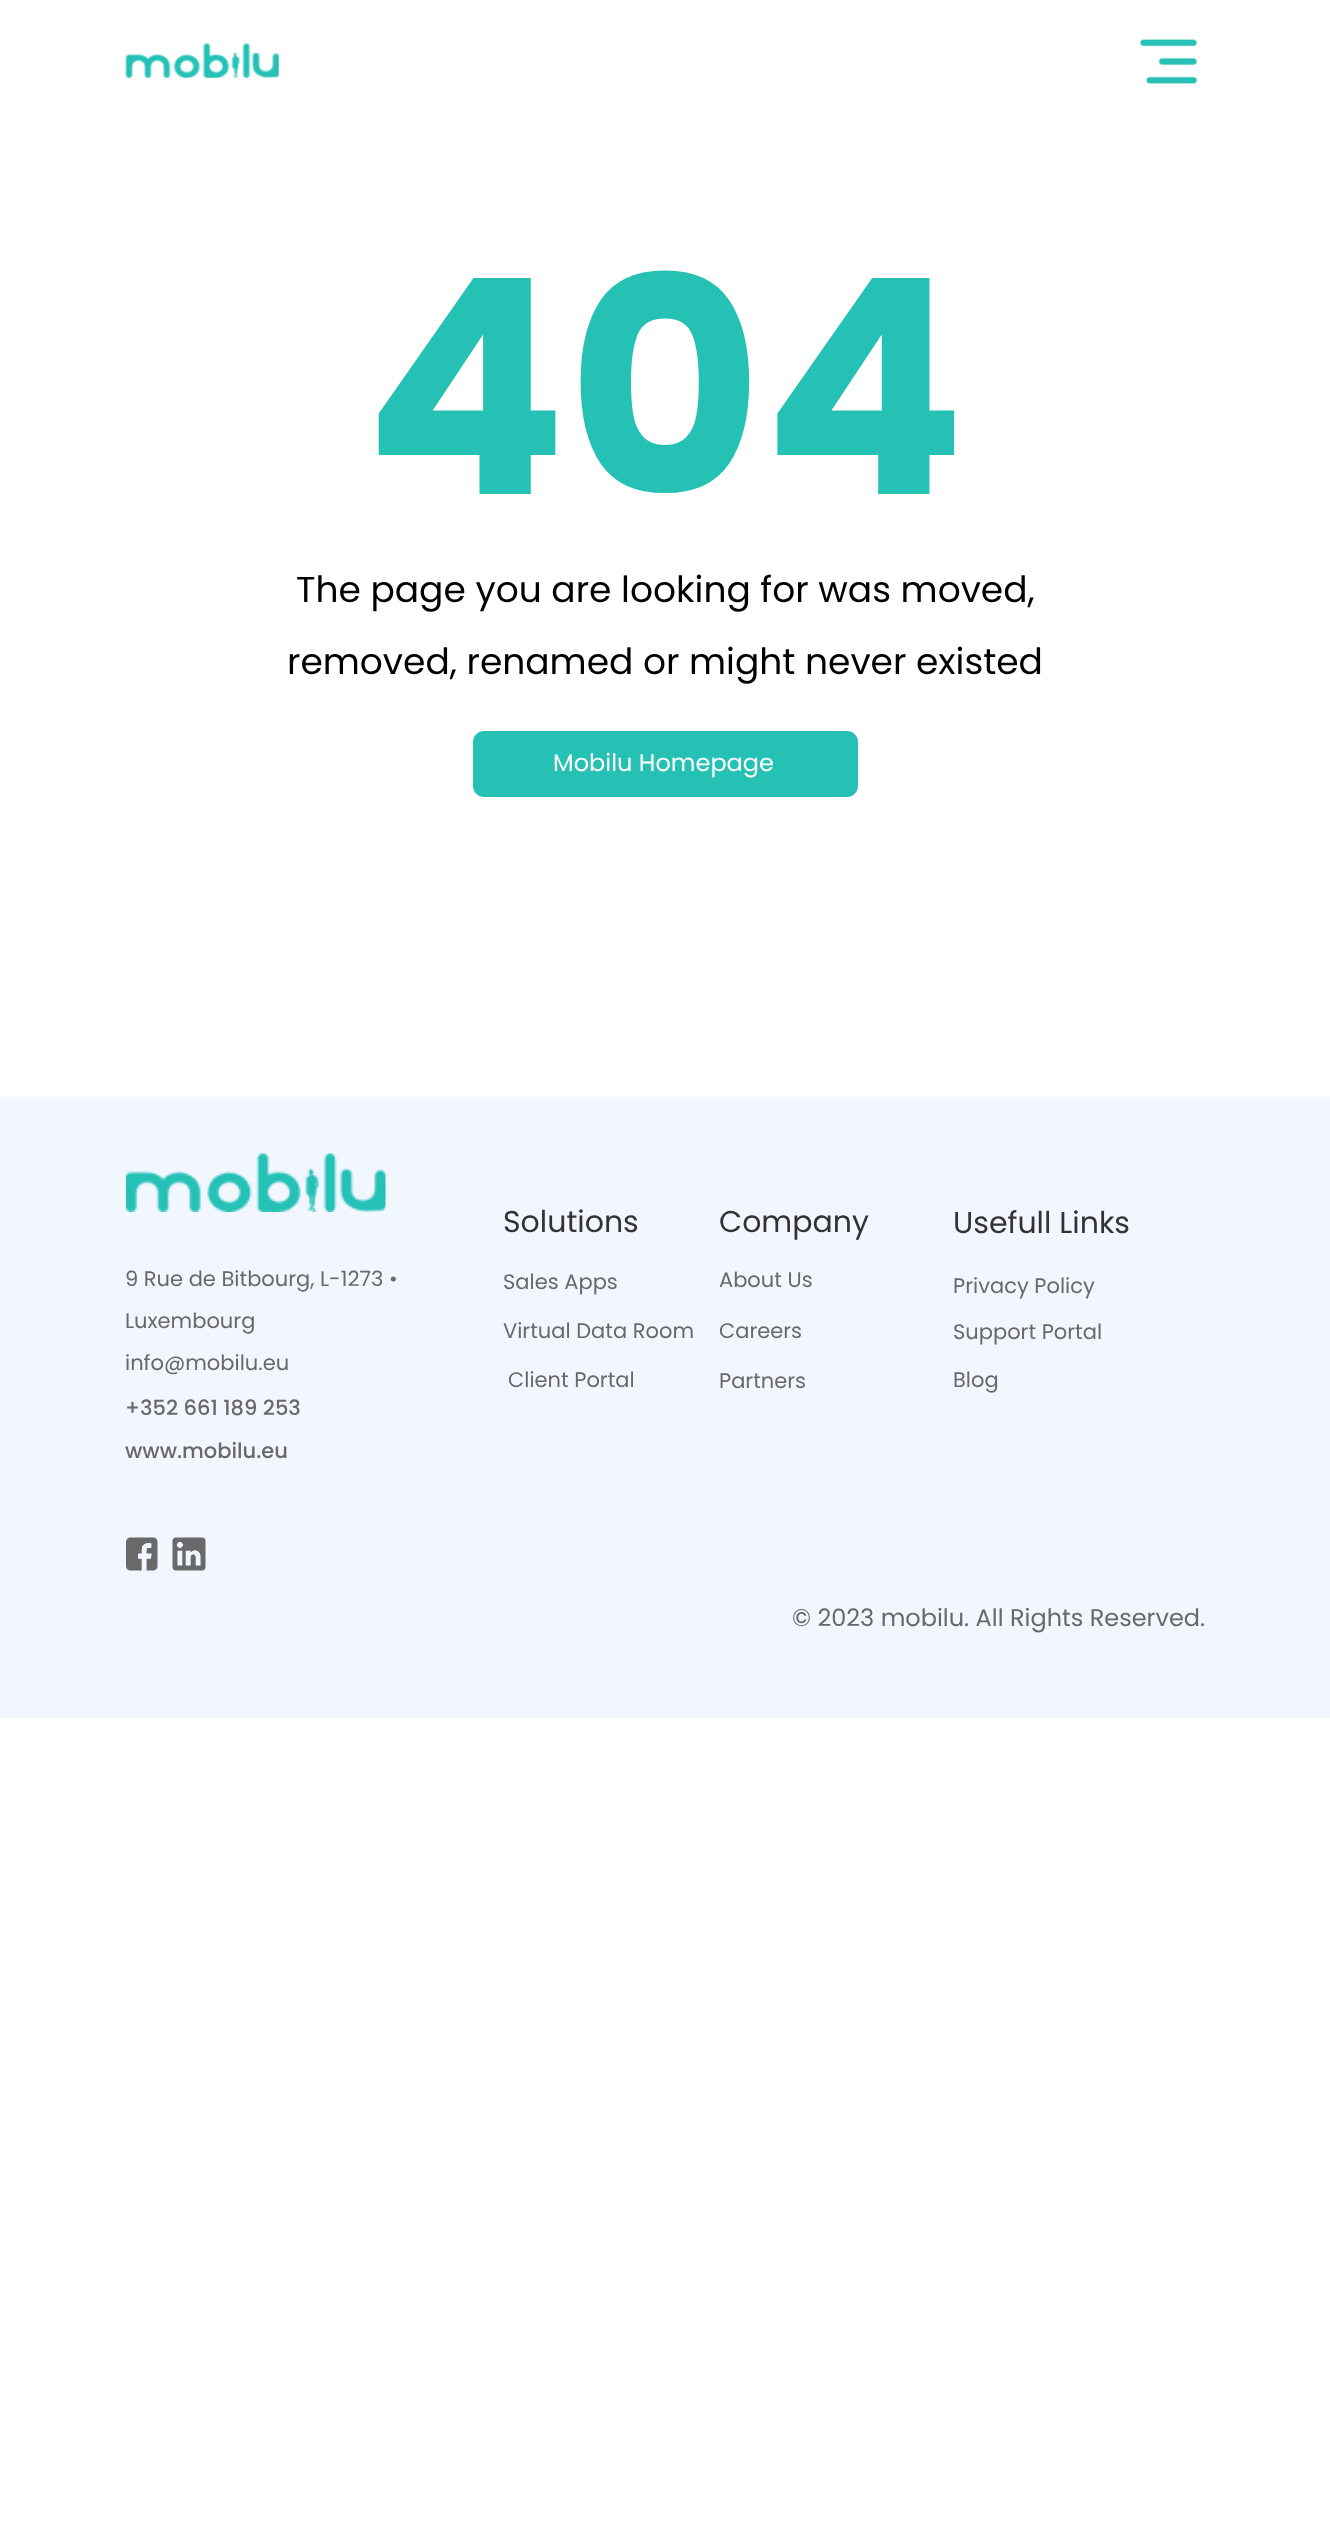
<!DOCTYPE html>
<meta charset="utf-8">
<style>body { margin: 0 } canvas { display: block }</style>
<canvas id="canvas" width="1330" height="2539"></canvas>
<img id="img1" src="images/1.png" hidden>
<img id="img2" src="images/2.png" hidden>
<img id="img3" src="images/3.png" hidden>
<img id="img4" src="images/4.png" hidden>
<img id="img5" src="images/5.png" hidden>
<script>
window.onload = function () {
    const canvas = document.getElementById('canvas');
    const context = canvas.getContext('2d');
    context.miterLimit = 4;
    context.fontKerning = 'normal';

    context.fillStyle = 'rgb(255, 255, 255)';
    context.fillRect(0, 0, 1330, 2539);
    context.drawImage(document.getElementById('img1'), 125, 43, 154, 35);
    context.drawImage(document.getElementById('img2'), 1140, 39, 57, 45);
    context.fillStyle = 'rgb(38, 193, 181)';
    context.beginPath();
    context.roundRect(474.5, 732.5, 382, 63, 9.5);
    context.fill();
    context.strokeStyle = 'rgb(38, 193, 181)';
    context.lineWidth = 3;
    context.stroke();
    context.fillStyle = 'rgb(241, 246, 255)';
    context.fillRect(0, 1097, 1330, 621);
    context.drawImage(document.getElementById('img3'), 126, 1153, 260, 59);
    context.drawImage(document.getElementById('img4'), 126, 1537, 32, 34);
    context.drawImage(document.getElementById('img5'), 172, 1537, 34, 34);
    context.font = 'bold 300px Poppins';
    context.fillStyle = 'rgb(38, 193, 181)';
    context.fillText('404', 364, 494);
    context.font = '36px Poppins';
    context.fillStyle = 'rgb(0, 0, 0)';
    context.fillText('The page you are looking for was moved,', 296, 602);
    context.fillText('removed, renamed or might never existed', 287, 674);
    context.font = '24px Poppins';
    context.fillStyle = 'rgb(255, 255, 255)';
    context.fillText('Mobilu Homepage', 553, 771);
    context.font = '21px Poppins';
    context.fillStyle = 'rgb(105, 105, 105)';
    context.fillText('9 Rue de Bitbourg, L-1273 •', 125, 1286);
    context.fillText('Luxembourg', 125, 1328);
    context.fillText('info@mobilu.eu', 125, 1370);
    context.font = '500 21px Poppins';
    context.fillText('+352 661 189 253', 125, 1415);
    context.fillText('www.mobilu.eu', 125, 1458);
    context.font = '30px Poppins';
    context.fillStyle = 'rgb(51, 51, 51)';
    context.fillText('Solutions', 503, 1232);
    context.font = '21px Poppins';
    context.fillStyle = 'rgb(105, 105, 105)';
    context.fillText('Sales Apps', 503, 1289);
    context.fillText('Virtual Data Room', 503, 1338);
    context.fillText('Client Portal', 508, 1387);
    context.font = '30px Poppins';
    context.fillStyle = 'rgb(51, 51, 51)';
    context.fillText('Company', 719, 1232);
    context.font = '21px Poppins';
    context.fillStyle = 'rgb(105, 105, 105)';
    context.fillText('About Us', 719, 1287);
    context.fillText('Careers', 719, 1338);
    context.fillText('Partners', 719, 1388);
    context.font = '30px Poppins';
    context.fillStyle = 'rgb(51, 51, 51)';
    context.fillText('Usefull Links', 953, 1233);
    context.font = '21px Poppins';
    context.fillStyle = 'rgb(105, 105, 105)';
    context.fillText('Privacy Policy', 953, 1293);
    context.fillText('Support Portal', 953, 1339);
    context.fillText('Blog', 953, 1387);
    context.font = '24px Poppins';
    context.fillText('© 2023 mobilu. All Rights Reserved.', 792, 1626);
};
</script>
